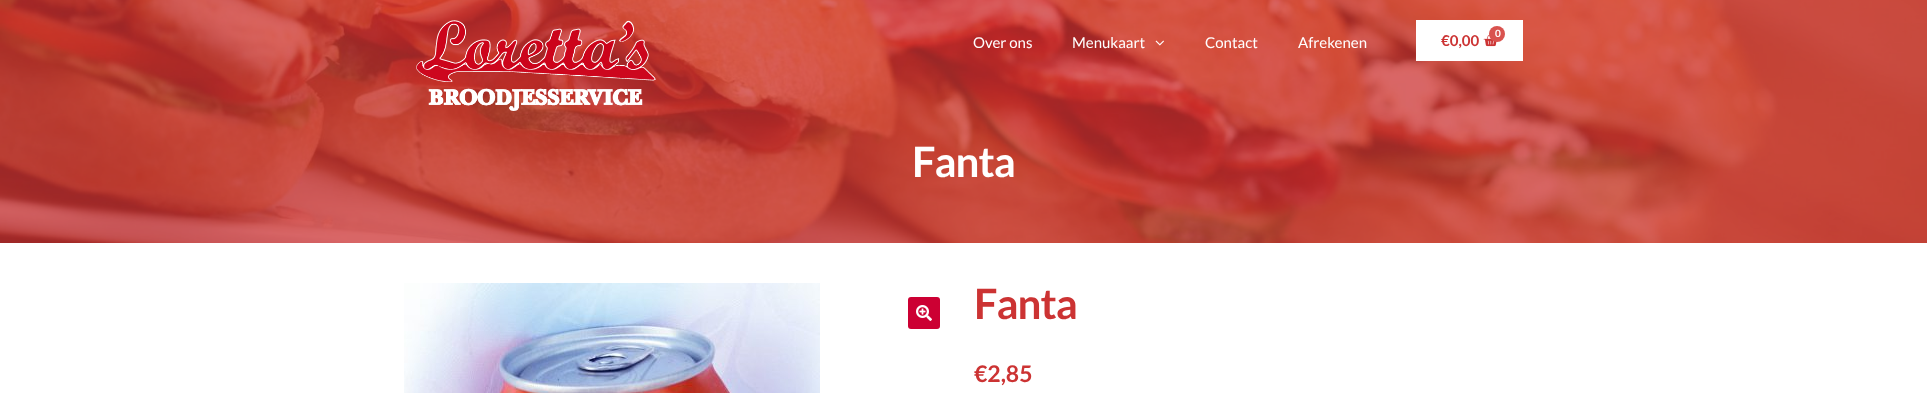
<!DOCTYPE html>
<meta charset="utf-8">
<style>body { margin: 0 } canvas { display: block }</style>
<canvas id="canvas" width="1927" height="393"></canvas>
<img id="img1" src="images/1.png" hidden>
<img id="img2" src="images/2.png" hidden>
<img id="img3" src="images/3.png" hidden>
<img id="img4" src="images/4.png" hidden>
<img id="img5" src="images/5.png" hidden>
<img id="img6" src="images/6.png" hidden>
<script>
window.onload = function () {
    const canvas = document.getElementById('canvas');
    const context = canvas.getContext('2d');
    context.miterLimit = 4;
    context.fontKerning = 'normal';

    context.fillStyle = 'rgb(255, 255, 255)';
    context.fillRect(0, 0, 1927, 393);
    context.drawImage(document.getElementById('img1'), 0, 0, 1927, 243);
    context.drawImage(document.getElementById('img2'), 416, 20, 240, 91);
    context.drawImage(document.getElementById('img3'), 1155, 40, 9, 6);
    context.fillRect(1416, 20, 107, 41);
    context.drawImage(document.getElementById('img4'), 1483, 35, 14, 12);
    context.fillStyle = 'rgb(217, 83, 79)';
    context.beginPath();
    context.arc(1497, 34, 8, 0, 2 * Math.PI);
    context.fill();
    context.drawImage(document.getElementById('img5'), 404, 283, 416, 110);
    context.fillStyle = 'rgb(204, 0, 51)';
    context.beginPath();
    context.roundRect(908, 297, 32, 32, 3);
    context.fill();
    context.drawImage(document.getElementById('img6'), 916, 305, 16, 16);
    context.font = '15px Lato';
    context.fillStyle = 'rgb(255, 255, 255)';
    context.fillText('Over ons', 973, 48);
    context.fillText('Menukaart', 1072, 48);
    context.fillText('Contact', 1205, 48);
    context.fillText('Afrekenen', 1298, 48);
    context.font = 'bold 10px Lato';
    context.fillText('0', 1495, 37);
    context.font = 'bold 15px Lato';
    context.fillStyle = 'rgb(204, 51, 51)';
    context.fillText('€0,00', 1441, 46);
    context.letterSpacing = '-1px';
    context.font = 'bold 42px Lato';
    context.fillStyle = 'rgb(255, 255, 255)';
    context.fillText('Fanta', 912, 177);
    context.fillStyle = 'rgb(204, 51, 51)';
    context.fillText('Fanta', 974, 319);
    context.letterSpacing = '0px';
    context.font = 'bold 23px Lato';
    context.fillText('€2,85', 974, 382);
};
</script>
